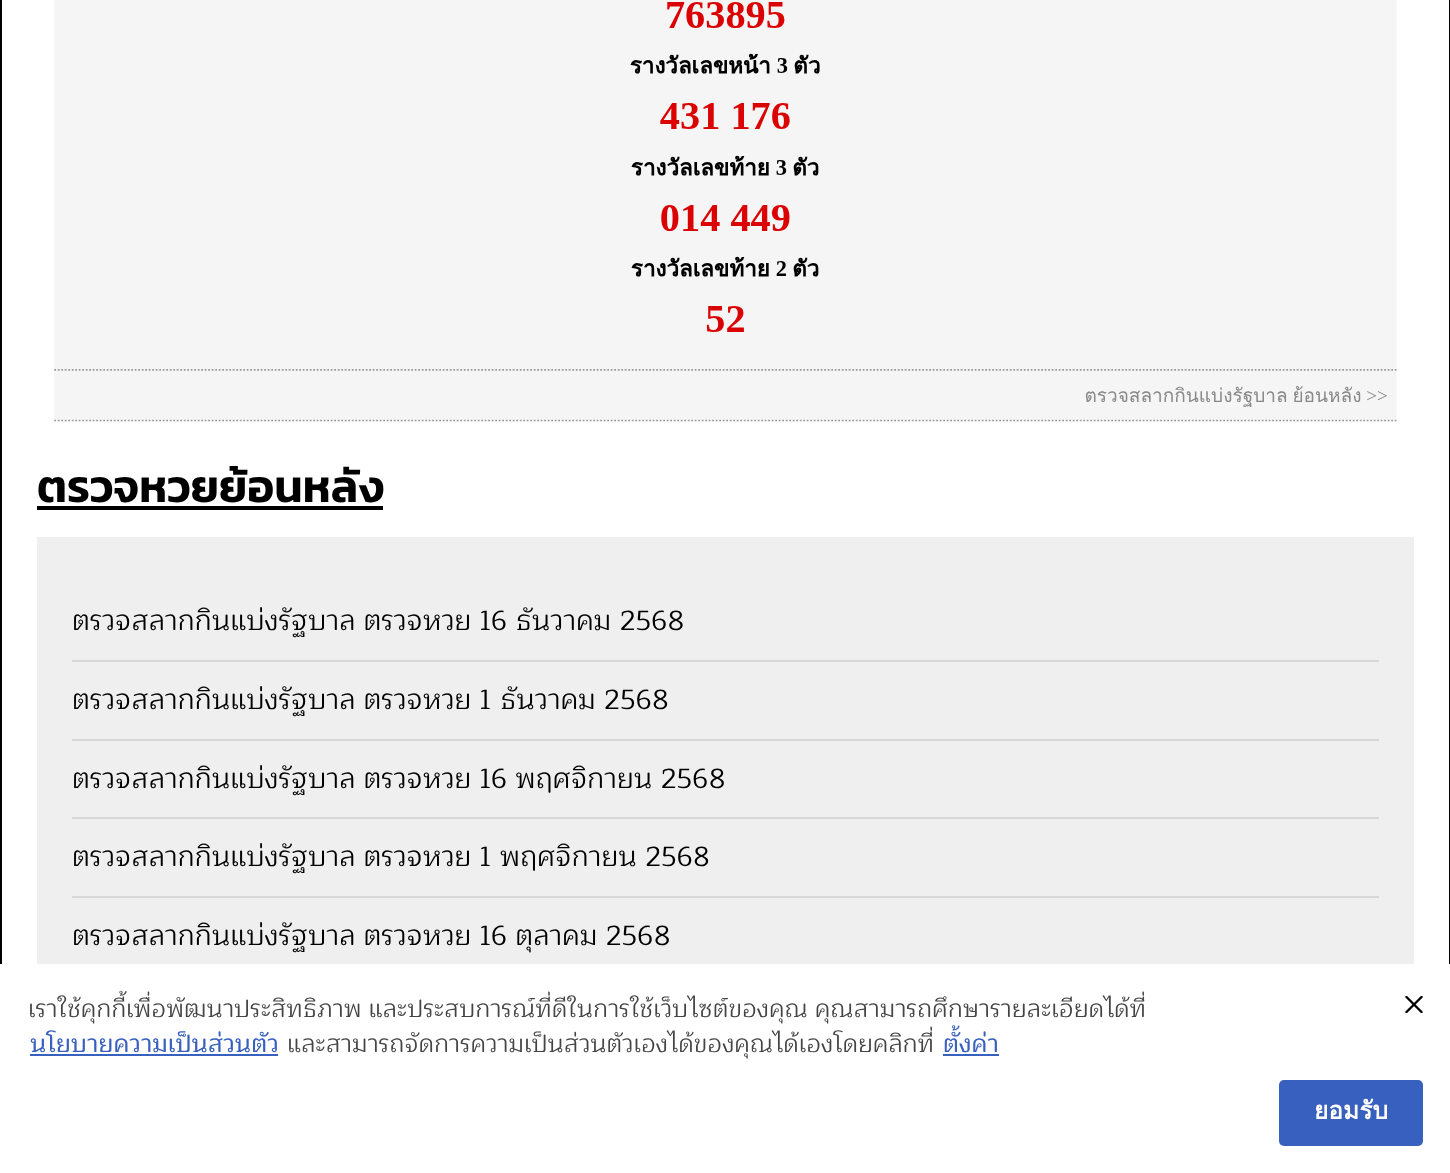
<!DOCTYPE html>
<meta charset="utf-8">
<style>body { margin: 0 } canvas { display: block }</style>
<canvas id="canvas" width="1450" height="1173"></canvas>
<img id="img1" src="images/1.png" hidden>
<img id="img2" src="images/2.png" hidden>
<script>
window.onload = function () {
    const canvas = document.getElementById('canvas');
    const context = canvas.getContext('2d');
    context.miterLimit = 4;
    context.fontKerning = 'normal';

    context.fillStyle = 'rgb(255, 255, 255)';
    context.fillRect(0, 0, 1450, 1173);
    context.strokeStyle = 'rgb(0, 0, 0)';
    context.lineWidth = 2;
    context.strokeRect(1, -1, 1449, 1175);
    context.drawImage(document.getElementById('img1'), 54, 0, 1343, 422);
    context.fillStyle = 'rgb(0, 0, 0)';
    context.fillRect(37, 506, 346, 4);
    context.fillStyle = 'rgb(239, 239, 239)';
    context.fillRect(37, 537, 1377, 427);
    context.fillStyle = 'rgb(215, 215, 215)';
    context.fillRect(72, 660, 1307, 2);
    context.fillRect(72, 739, 1307, 2);
    context.fillRect(72, 817, 1307, 2);
    context.fillRect(72, 896, 1307, 2);
    context.fillStyle = 'rgb(255, 255, 255)';
    context.fillRect(0, 964, 1450, 209);
    context.fillStyle = 'rgb(56, 96, 190)';
    context.fillRect(30, 1054, 248, 2);
    context.fillRect(943, 1054, 56, 2);
    context.drawImage(document.getElementById('img2'), 1405, 996, 18, 17);
    context.beginPath();
    context.roundRect(1279, 1080, 144, 66, 5);
    context.fill();
    context.font = '600 45.5px Kanit';
    context.fillStyle = 'rgb(0, 0, 0)';
    context.fillText('ตรวจหวยย้อนหลัง', 37, 502);
    context.font = '28px Maitree';
    context.fillText('ตรวจสลากกินแบ่งรัฐบาล ตรวจหวย 16 ธันวาคม 2568', 72, 630);
    context.fillText('ตรวจสลากกินแบ่งรัฐบาล ตรวจหวย 1 ธันวาคม 2568', 72, 709);
    context.fillText('ตรวจสลากกินแบ่งรัฐบาล ตรวจหวย 16 พฤศจิกายน 2568', 72, 788);
    context.fillText('ตรวจสลากกินแบ่งรัฐบาล ตรวจหวย 1 พฤศจิกายน 2568', 72, 866);
    context.fillText('ตรวจสลากกินแบ่งรัฐบาล ตรวจหวย 16 ตุลาคม 2568', 72, 945);
    context.font = '24.5px Maitree';
    context.fillStyle = 'rgb(68, 68, 68)';
    context.fillText('เราใช้คุกกี้เพื่อพัฒนาประสิทธิภาพ และประสบการณ์ที่ดีในการใช้เว็บไซต์ของคุณ คุณสามารถศึกษารายละเอียดได้ที่', 28, 1017);
    context.font = '500 24.5px Maitree';
    context.fillStyle = 'rgb(56, 96, 190)';
    context.fillText('นโยบายความเป็นส่วนตัว', 30, 1052);
    context.font = '24.5px Maitree';
    context.fillStyle = 'rgb(68, 68, 68)';
    context.fillText('และสามารถจัดการความเป็นส่วนตัวเองได้ของคุณได้เองโดยคลิกที่', 287, 1052);
    context.font = '500 24.5px Maitree';
    context.fillStyle = 'rgb(56, 96, 190)';
    context.fillText('ตั้งค่า', 943, 1052);
    context.font = 'bold 24.5px Loma';
    context.fillStyle = 'rgb(255, 255, 255)';
    context.fillText('ยอมรับ', 1314, 1119);
};
</script>
